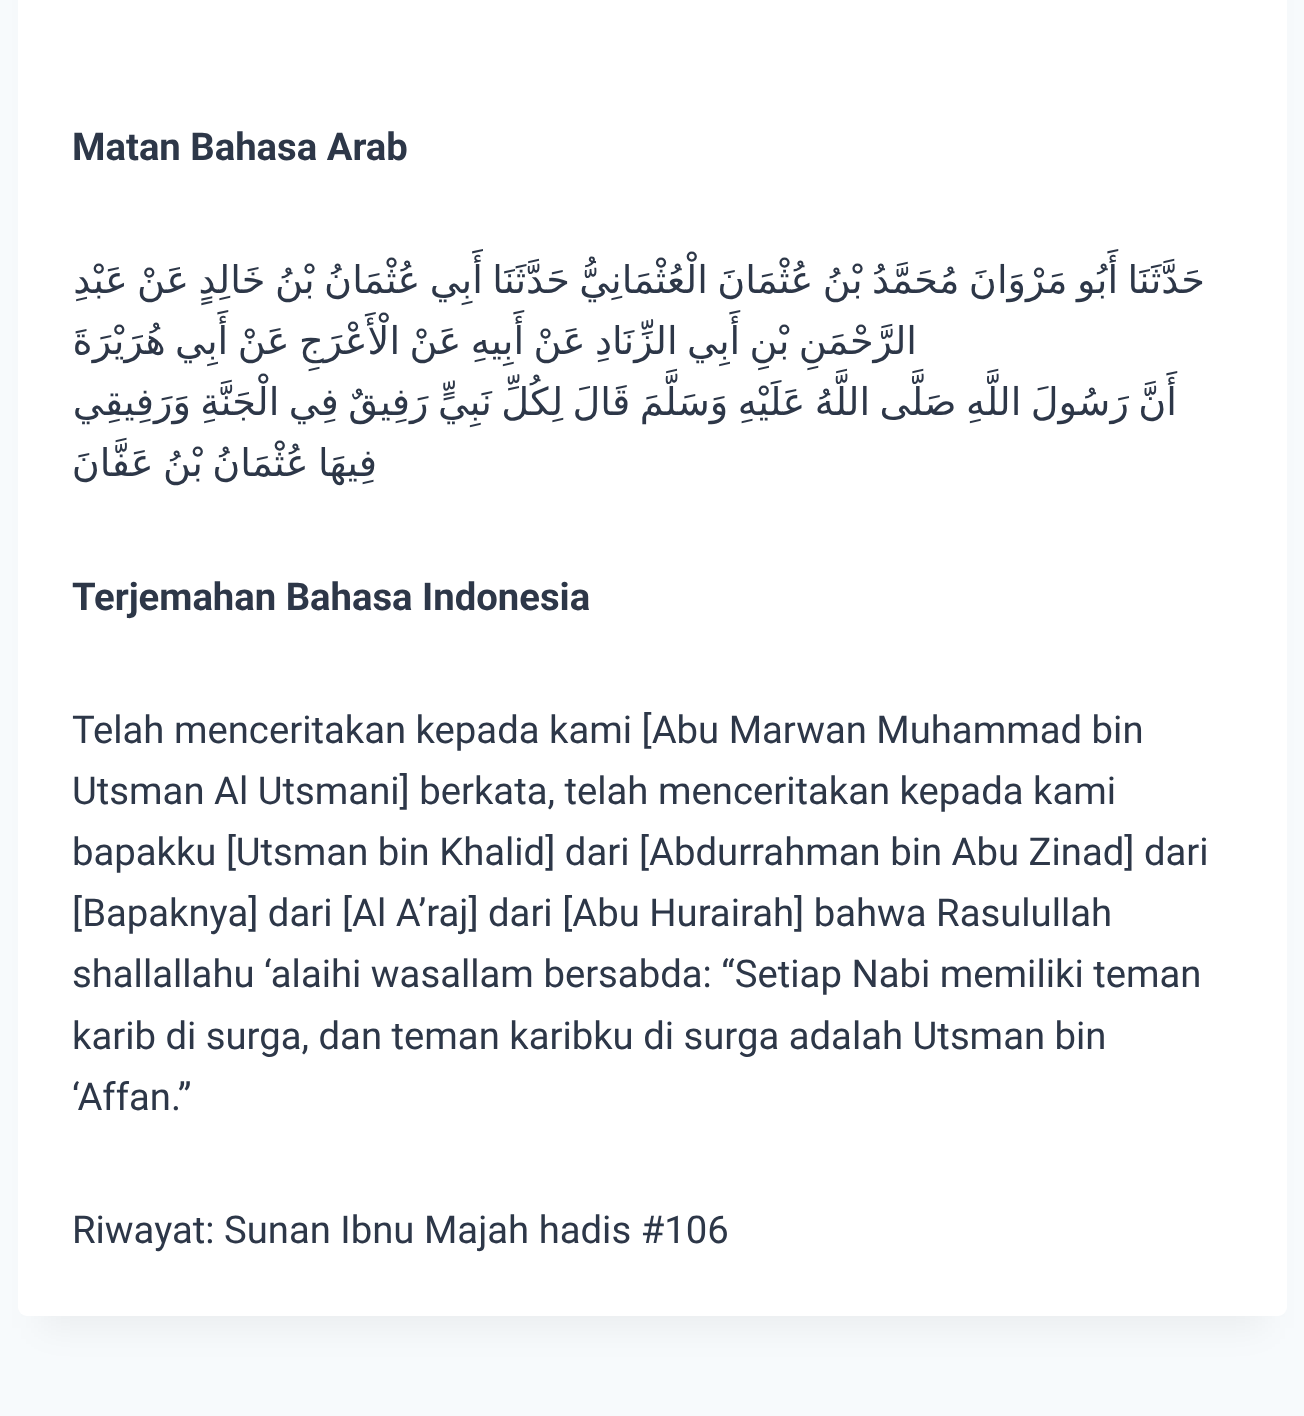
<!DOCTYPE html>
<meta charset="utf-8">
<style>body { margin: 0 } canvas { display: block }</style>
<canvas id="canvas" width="1304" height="1416"></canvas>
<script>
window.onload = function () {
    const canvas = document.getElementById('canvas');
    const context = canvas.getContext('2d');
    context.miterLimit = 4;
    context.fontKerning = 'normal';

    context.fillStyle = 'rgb(247, 250, 252)';
    context.fillRect(0, 0, 1304, 1416);
    context.fillStyle = 'rgba(0, 0, 0, 0.05)';
    context.filter = 'blur(17px)';
    context.beginPath();
    context.rect(41, -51, 1224, 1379);
    context.fill();
    context.filter = 'none';
    context.fillStyle = 'rgb(255, 255, 255)';
    context.beginPath();
    context.roundRect(18, -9, 1269, 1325, 9);
    context.fill();
    context.font = 'bold 38.25px Roboto';
    context.fillStyle = 'rgb(45, 55, 72)';
    context.fillText('Matan Bahasa Arab', 72, 160);
    context.wordSpacing = '-2.75px';
    context.direction = 'rtl';
    context.font = '38.25px DejaVu Sans';
    context.fillText('حَدَّثَنَا أَبُو مَرْوَانَ مُحَمَّدُ بْنُ عُثْمَانَ الْعُثْمَانِيُّ حَدَّثَنَا أَبِي عُثْمَانُ بْنُ خَالِدٍ عَنْ عَبْدِ', 1205, 293);
    context.fillText('الرَّحْمَنِ بْنِ أَبِي الزِّنَادِ عَنْ أَبِيهِ عَنْ الْأَعْرَجِ عَنْ أَبِي هُرَيْرَةَ', 917, 354);
    context.fillText('أَنَّ رَسُولَ اللَّهِ صَلَّى اللَّهُ عَلَيْهِ وَسَلَّمَ قَالَ لِكُلِّ نَبِيٍّ رَفِيقٌ فِي الْجَنَّةِ وَرَفِيقِي', 1177, 415);
    context.fillText('فِيهَا عُثْمَانُ بْنُ عَفَّانَ', 377, 476);
    context.wordSpacing = '0px';
    context.direction = 'ltr';
    context.font = 'bold 38.25px Roboto';
    context.fillText('Terjemahan Bahasa Indonesia', 72, 610);
    context.font = '38.25px Roboto';
    context.fillText('Telah menceritakan kepada kami [Abu Marwan Muhammad bin', 72, 743);
    context.fillText('Utsman Al Utsmani] berkata, telah menceritakan kepada kami', 72, 804);
    context.fillText('bapakku [Utsman bin Khalid] dari [Abdurrahman bin Abu Zinad] dari', 72, 865);
    context.fillText('[Bapaknya] dari [Al A’raj] dari [Abu Hurairah] bahwa Rasulullah', 72, 926);
    context.fillText('shallallahu ‘alaihi wasallam bersabda: “Setiap Nabi memiliki teman', 72, 987);
    context.fillText('karib di surga, dan teman karibku di surga adalah Utsman bin', 72, 1049);
    context.fillText('‘Affan.”', 72, 1110);
    context.fillText('Riwayat: Sunan Ibnu Majah hadis #106', 72, 1243);
};
</script>
